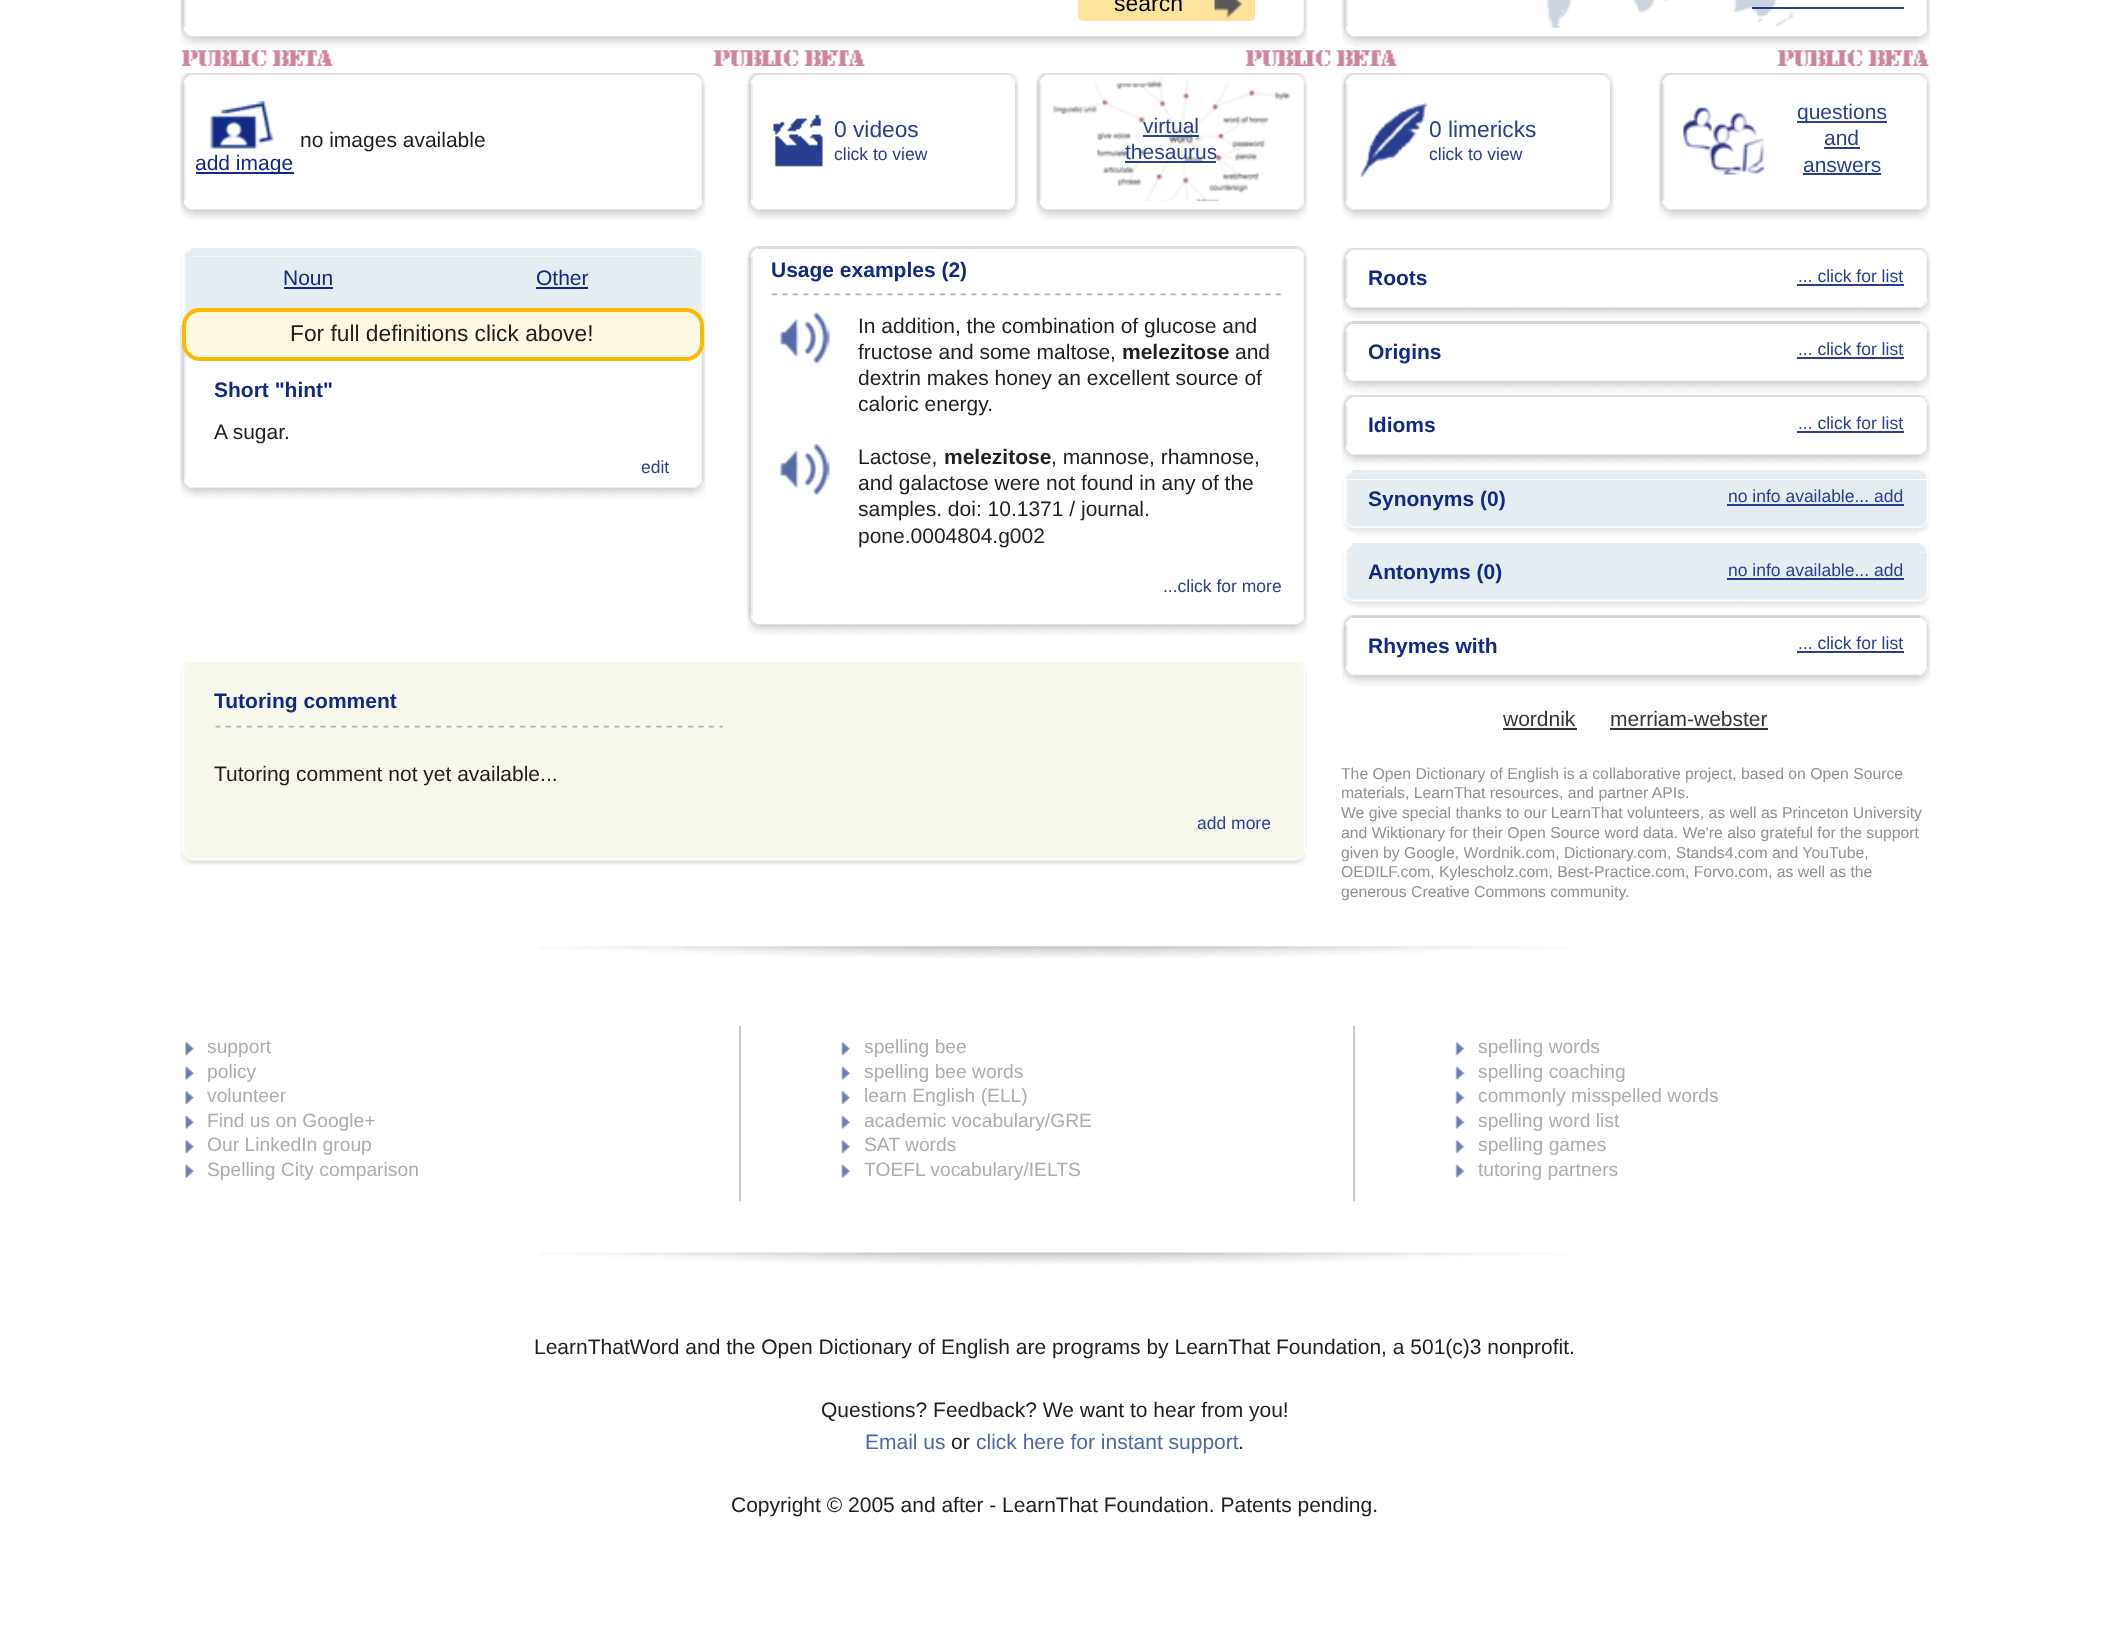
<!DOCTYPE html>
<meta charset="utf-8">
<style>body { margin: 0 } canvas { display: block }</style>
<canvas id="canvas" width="2108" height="1631"></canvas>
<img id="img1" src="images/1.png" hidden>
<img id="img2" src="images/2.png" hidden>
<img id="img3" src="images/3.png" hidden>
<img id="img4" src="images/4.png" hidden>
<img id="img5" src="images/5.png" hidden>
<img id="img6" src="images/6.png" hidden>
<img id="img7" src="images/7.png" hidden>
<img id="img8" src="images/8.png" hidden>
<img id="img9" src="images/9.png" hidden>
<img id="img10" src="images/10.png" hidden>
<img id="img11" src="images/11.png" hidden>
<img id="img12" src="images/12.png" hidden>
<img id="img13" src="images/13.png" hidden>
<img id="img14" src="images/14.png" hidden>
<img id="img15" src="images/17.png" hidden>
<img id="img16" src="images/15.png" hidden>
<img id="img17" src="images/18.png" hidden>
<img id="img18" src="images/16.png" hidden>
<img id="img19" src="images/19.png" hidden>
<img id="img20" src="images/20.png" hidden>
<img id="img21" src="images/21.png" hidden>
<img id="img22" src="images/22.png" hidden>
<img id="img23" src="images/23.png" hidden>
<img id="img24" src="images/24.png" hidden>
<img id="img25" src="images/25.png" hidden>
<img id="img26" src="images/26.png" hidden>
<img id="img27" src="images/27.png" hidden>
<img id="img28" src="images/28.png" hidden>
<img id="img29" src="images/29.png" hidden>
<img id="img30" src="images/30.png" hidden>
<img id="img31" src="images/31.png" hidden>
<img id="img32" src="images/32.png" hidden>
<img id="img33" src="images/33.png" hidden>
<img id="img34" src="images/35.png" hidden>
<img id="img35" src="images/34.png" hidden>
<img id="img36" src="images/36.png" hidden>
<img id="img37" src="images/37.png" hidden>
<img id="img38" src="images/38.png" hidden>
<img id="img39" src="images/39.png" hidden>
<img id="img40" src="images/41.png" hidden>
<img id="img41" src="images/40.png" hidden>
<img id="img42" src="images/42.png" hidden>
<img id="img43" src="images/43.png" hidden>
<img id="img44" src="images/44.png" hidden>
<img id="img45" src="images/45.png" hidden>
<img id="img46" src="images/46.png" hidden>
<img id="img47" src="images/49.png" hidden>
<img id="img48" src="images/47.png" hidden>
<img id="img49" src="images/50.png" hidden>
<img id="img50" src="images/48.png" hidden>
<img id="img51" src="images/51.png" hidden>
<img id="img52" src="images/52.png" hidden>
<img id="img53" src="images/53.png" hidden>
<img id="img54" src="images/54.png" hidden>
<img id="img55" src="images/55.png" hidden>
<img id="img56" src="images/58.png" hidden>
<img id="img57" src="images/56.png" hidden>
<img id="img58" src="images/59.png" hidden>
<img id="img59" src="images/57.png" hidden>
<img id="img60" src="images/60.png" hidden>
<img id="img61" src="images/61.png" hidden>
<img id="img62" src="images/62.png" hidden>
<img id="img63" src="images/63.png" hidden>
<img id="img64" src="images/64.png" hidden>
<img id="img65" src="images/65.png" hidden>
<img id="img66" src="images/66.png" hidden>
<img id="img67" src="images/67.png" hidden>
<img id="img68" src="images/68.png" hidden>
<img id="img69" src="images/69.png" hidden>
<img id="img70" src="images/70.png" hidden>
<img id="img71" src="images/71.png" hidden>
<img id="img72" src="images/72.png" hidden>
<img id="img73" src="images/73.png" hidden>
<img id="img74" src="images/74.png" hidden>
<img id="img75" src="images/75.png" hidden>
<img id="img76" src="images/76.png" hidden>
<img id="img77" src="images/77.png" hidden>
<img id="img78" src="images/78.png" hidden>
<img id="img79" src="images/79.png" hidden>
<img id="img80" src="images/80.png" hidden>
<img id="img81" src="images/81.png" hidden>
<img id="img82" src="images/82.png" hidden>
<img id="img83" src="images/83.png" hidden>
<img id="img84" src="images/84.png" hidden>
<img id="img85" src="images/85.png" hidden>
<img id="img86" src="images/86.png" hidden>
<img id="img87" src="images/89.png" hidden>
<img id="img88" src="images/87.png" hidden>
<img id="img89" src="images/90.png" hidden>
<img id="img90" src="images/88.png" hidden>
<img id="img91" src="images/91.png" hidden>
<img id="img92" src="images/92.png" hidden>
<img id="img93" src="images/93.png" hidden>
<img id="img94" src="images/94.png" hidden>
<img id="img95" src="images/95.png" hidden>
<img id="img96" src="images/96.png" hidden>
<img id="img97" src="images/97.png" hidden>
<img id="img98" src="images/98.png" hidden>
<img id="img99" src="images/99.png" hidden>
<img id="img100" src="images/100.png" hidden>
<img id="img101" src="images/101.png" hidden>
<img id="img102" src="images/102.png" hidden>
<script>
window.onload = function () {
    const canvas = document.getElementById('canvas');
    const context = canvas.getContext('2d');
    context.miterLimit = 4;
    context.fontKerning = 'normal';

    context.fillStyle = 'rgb(255, 255, 255)';
    context.fillRect(0, 0, 2108, 1631);
    context.drawImage(document.getElementById('img1'), 181, 50, 1748, 16);
    context.drawImage(document.getElementById('img2'), 180, 0, 6, 28);
    context.drawImage(document.getElementById('img3'), 1303, 0, 5, 28);
    context.fillStyle = 'rgb(254, 227, 155)';
    context.beginPath();
    context.roundRect(1078, -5, 177, 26, 5);
    context.fill();
    context.drawImage(document.getElementById('img4'), 1214, 0, 29, 19);
    context.drawImage(document.getElementById('img5'), 192, 36, 1103, 12);
    context.drawImage(document.getElementById('img6'), 180, 27, 13, 20);
    context.drawImage(document.getElementById('img7'), 1295, 27, 13, 20);
    context.drawImage(document.getElementById('img8'), 1342, 0, 6, 28);
    context.drawImage(document.getElementById('img9'), 1926, 0, 4, 28);
    context.drawImage(document.getElementById('img10'), 1546, 0, 248, 28);
    context.fillStyle = 'rgba(18, 42, 131, 0.9)';
    context.fillRect(1752, 7, 152, 2);
    context.drawImage(document.getElementById('img11'), 1354, 27, 564, 21);
    context.drawImage(document.getElementById('img12'), 1342, 27, 13, 20);
    context.drawImage(document.getElementById('img13'), 1918, 27, 12, 20);
    context.drawImage(document.getElementById('img14'), 190, 73, 505, 2);
    context.drawImage(document.getElementById('img15'), 180, 83, 6, 118);
    context.drawImage(document.getElementById('img16'), 180, 73, 11, 11);
    context.drawImage(document.getElementById('img17'), 701, 83, 5, 118);
    context.drawImage(document.getElementById('img18'), 694, 73, 11, 11);
    context.drawImage(document.getElementById('img19'), 209, 101, 65, 48);
    context.fillStyle = 'rgb(18, 42, 131)';
    context.fillRect(196, 172, 98, 2);
    context.drawImage(document.getElementById('img20'), 192, 209, 501, 12);
    context.drawImage(document.getElementById('img21'), 180, 200, 13, 20);
    context.drawImage(document.getElementById('img22'), 693, 201, 13, 20);
    context.drawImage(document.getElementById('img23'), 190, 247, 505, 10);
    context.drawImage(document.getElementById('img24'), 183, 249, 8, 8);
    context.drawImage(document.getElementById('img25'), 695, 247, 10, 10);
    context.fillStyle = 'rgb(229, 236, 242)';
    context.fillRect(180, 257, 525, 65);
    context.drawImage(document.getElementById('img26'), 180, 257, 6, 65);
    context.drawImage(document.getElementById('img27'), 701, 257, 4, 65);
    context.fillStyle = 'rgb(18, 42, 131)';
    context.fillRect(284, 287, 49, 2);
    context.fillRect(536, 287, 52, 2);
    context.drawImage(document.getElementById('img28'), 180, 325, 6, 154);
    context.drawImage(document.getElementById('img29'), 701, 325, 5, 154);
    context.fillStyle = 'rgb(253, 249, 227)';
    context.beginPath();
    context.roundRect(184, 310, 518, 49, 16);
    context.fill();
    context.strokeStyle = 'rgb(255, 184, 0)';
    context.lineWidth = 4;
    context.stroke();
    context.drawImage(document.getElementById('img30'), 192, 487, 501, 12);
    context.drawImage(document.getElementById('img31'), 180, 479, 13, 19);
    context.drawImage(document.getElementById('img32'), 693, 479, 13, 20);
    context.drawImage(document.getElementById('img33'), 757, 73, 251, 2);
    context.drawImage(document.getElementById('img15'), 747, 83, 6, 118);
    context.drawImage(document.getElementById('img16'), 747, 73, 11, 11);
    context.drawImage(document.getElementById('img34'), 1015, 83, 4, 118);
    context.drawImage(document.getElementById('img35'), 1008, 73, 11, 11);
    context.drawImage(document.getElementById('img36'), 773, 114, 50, 53);
    context.drawImage(document.getElementById('img37'), 759, 209, 248, 12);
    context.drawImage(document.getElementById('img21'), 747, 200, 13, 20);
    context.drawImage(document.getElementById('img38'), 1006, 200, 13, 20);
    context.drawImage(document.getElementById('img39'), 1046, 73, 251, 2);
    context.drawImage(document.getElementById('img40'), 1036, 83, 6, 118);
    context.drawImage(document.getElementById('img41'), 1036, 73, 11, 11);
    context.drawImage(document.getElementById('img42'), 1303, 83, 5, 118);
    context.drawImage(document.getElementById('img18'), 1296, 73, 11, 11);
    context.drawImage(document.getElementById('img43'), 1053, 76, 237, 126);
    context.fillStyle = 'rgba(18, 42, 131, 0.9)';
    context.fillRect(1143, 135, 56, 2);
    context.fillRect(1125, 161, 91, 2);
    context.drawImage(document.getElementById('img44'), 1048, 200, 247, 21);
    context.drawImage(document.getElementById('img45'), 1036, 200, 13, 21);
    context.drawImage(document.getElementById('img46'), 1295, 201, 13, 20);
    context.fillStyle = 'rgb(219, 219, 219)';
    context.fillRect(757, 246, 540, 3);
    context.drawImage(document.getElementById('img47'), 747, 256, 6, 360);
    context.drawImage(document.getElementById('img48'), 747, 246, 11, 11);
    context.drawImage(document.getElementById('img49'), 1303, 256, 5, 360);
    context.drawImage(document.getElementById('img50'), 1296, 246, 11, 11);
    context.drawImage(document.getElementById('img51'), 771, 293, 511, 3);
    context.drawImage(document.getElementById('img52'), 780, 312, 50, 52);
    context.drawImage(document.getElementById('img53'), 780, 444, 50, 52);
    context.drawImage(document.getElementById('img54'), 759, 624, 536, 12);
    context.drawImage(document.getElementById('img55'), 747, 615, 13, 20);
    context.drawImage(document.getElementById('img7'), 1295, 615, 13, 20);
    context.fillStyle = 'rgb(248, 247, 236)';
    context.fillRect(190, 662, 1107, 10);
    context.fillRect(180, 672, 1127, 180);
    context.drawImage(document.getElementById('img56'), 180, 671, 6, 181);
    context.drawImage(document.getElementById('img57'), 180, 662, 11, 10);
    context.drawImage(document.getElementById('img58'), 1303, 671, 4, 181);
    context.drawImage(document.getElementById('img59'), 1297, 662, 10, 10);
    context.drawImage(document.getElementById('img60'), 215, 725, 508, 3);
    context.drawImage(document.getElementById('img61'), 192, 852, 1103, 14);
    context.drawImage(document.getElementById('img62'), 180, 852, 13, 14);
    context.drawImage(document.getElementById('img63'), 1295, 852, 12, 14);
    context.drawImage(document.getElementById('img33'), 1352, 73, 251, 2);
    context.drawImage(document.getElementById('img15'), 1342, 83, 6, 118);
    context.drawImage(document.getElementById('img16'), 1342, 73, 11, 11);
    context.drawImage(document.getElementById('img34'), 1610, 83, 4, 118);
    context.drawImage(document.getElementById('img35'), 1603, 73, 11, 11);
    context.drawImage(document.getElementById('img64'), 1359, 102, 69, 76);
    context.drawImage(document.getElementById('img37'), 1354, 209, 248, 12);
    context.drawImage(document.getElementById('img21'), 1342, 200, 13, 20);
    context.drawImage(document.getElementById('img38'), 1601, 200, 13, 20);
    context.drawImage(document.getElementById('img39'), 1669, 73, 251, 2);
    context.drawImage(document.getElementById('img40'), 1659, 83, 6, 118);
    context.drawImage(document.getElementById('img41'), 1659, 73, 11, 11);
    context.drawImage(document.getElementById('img42'), 1926, 83, 5, 118);
    context.drawImage(document.getElementById('img18'), 1919, 73, 11, 11);
    context.drawImage(document.getElementById('img65'), 1683, 107, 82, 68);
    context.fillStyle = 'rgb(42, 63, 143)';
    context.fillRect(1797, 121, 90, 2);
    context.fillRect(1824, 147, 36, 2);
    context.fillRect(1803, 173, 78, 2);
    context.drawImage(document.getElementById('img66'), 1671, 209, 247, 12);
    context.drawImage(document.getElementById('img67'), 1659, 200, 13, 21);
    context.drawImage(document.getElementById('img22'), 1918, 201, 13, 20);
    context.drawImage(document.getElementById('img68'), 1352, 248, 568, 2);
    context.drawImage(document.getElementById('img69'), 1342, 258, 6, 41);
    context.drawImage(document.getElementById('img16'), 1342, 248, 11, 11);
    context.drawImage(document.getElementById('img70'), 1926, 258, 5, 41);
    context.drawImage(document.getElementById('img18'), 1919, 248, 11, 11);
    context.fillRect(1797, 284, 107, 2);
    context.drawImage(document.getElementById('img71'), 1354, 307, 564, 12);
    context.drawImage(document.getElementById('img21'), 1342, 298, 13, 20);
    context.drawImage(document.getElementById('img22'), 1918, 299, 13, 20);
    context.fillStyle = 'rgb(213, 213, 213)';
    context.fillRect(1352, 321, 568, 3);
    context.drawImage(document.getElementById('img72'), 1342, 321, 11, 11);
    context.drawImage(document.getElementById('img73'), 1919, 321, 11, 11);
    context.drawImage(document.getElementById('img74'), 1342, 332, 6, 41);
    context.drawImage(document.getElementById('img75'), 1926, 332, 5, 41);
    context.fillStyle = 'rgb(42, 63, 143)';
    context.fillRect(1797, 357, 107, 2);
    context.drawImage(document.getElementById('img76'), 1354, 380, 564, 13);
    context.drawImage(document.getElementById('img77'), 1342, 372, 13, 20);
    context.drawImage(document.getElementById('img78'), 1918, 372, 13, 20);
    context.drawImage(document.getElementById('img68'), 1352, 395, 568, 2);
    context.drawImage(document.getElementById('img69'), 1342, 405, 6, 41);
    context.drawImage(document.getElementById('img16'), 1342, 395, 11, 11);
    context.drawImage(document.getElementById('img70'), 1926, 405, 5, 41);
    context.drawImage(document.getElementById('img18'), 1919, 395, 11, 11);
    context.fillRect(1797, 431, 107, 2);
    context.drawImage(document.getElementById('img79'), 1354, 454, 564, 12);
    context.drawImage(document.getElementById('img21'), 1342, 445, 13, 20);
    context.drawImage(document.getElementById('img22'), 1918, 446, 13, 20);
    context.fillStyle = 'rgb(229, 236, 242)';
    context.fillRect(1352, 470, 568, 9);
    context.drawImage(document.getElementById('img80'), 1345, 470, 8, 9);
    context.drawImage(document.getElementById('img81'), 1920, 470, 10, 9);
    context.fillRect(1342, 480, 588, 40);
    context.drawImage(document.getElementById('img82'), 1342, 479, 6, 41);
    context.drawImage(document.getElementById('img83'), 1926, 479, 4, 41);
    context.fillStyle = 'rgb(39, 61, 142)';
    context.fillRect(1727, 504, 177, 2);
    context.drawImage(document.getElementById('img84'), 1354, 520, 564, 16);
    context.drawImage(document.getElementById('img85'), 1342, 519, 13, 14);
    context.drawImage(document.getElementById('img86'), 1918, 519, 12, 14);
    context.fillStyle = 'rgb(229, 236, 242)';
    context.fillRect(1352, 543, 568, 10);
    context.fillRect(1342, 553, 588, 40);
    context.drawImage(document.getElementById('img87'), 1342, 552, 6, 41);
    context.drawImage(document.getElementById('img88'), 1345, 543, 8, 10);
    context.drawImage(document.getElementById('img89'), 1926, 552, 4, 41);
    context.drawImage(document.getElementById('img90'), 1919, 543, 11, 10);
    context.fillStyle = 'rgb(39, 61, 142)';
    context.fillRect(1727, 578, 177, 2);
    context.drawImage(document.getElementById('img91'), 1354, 593, 564, 17);
    context.drawImage(document.getElementById('img92'), 1342, 593, 13, 14);
    context.drawImage(document.getElementById('img93'), 1918, 593, 12, 14);
    context.fillStyle = 'rgb(213, 213, 213)';
    context.fillRect(1352, 615, 568, 3);
    context.drawImage(document.getElementById('img72'), 1342, 615, 11, 11);
    context.drawImage(document.getElementById('img73'), 1919, 615, 11, 11);
    context.drawImage(document.getElementById('img74'), 1342, 626, 6, 41);
    context.drawImage(document.getElementById('img75'), 1926, 626, 5, 41);
    context.fillStyle = 'rgb(42, 63, 143)';
    context.fillRect(1797, 651, 107, 2);
    context.drawImage(document.getElementById('img94'), 1354, 674, 564, 13);
    context.drawImage(document.getElementById('img77'), 1342, 666, 13, 20);
    context.drawImage(document.getElementById('img78'), 1918, 666, 13, 20);
    context.fillStyle = 'rgb(57, 53, 53)';
    context.fillRect(1503, 728, 74, 2);
    context.fillRect(1610, 728, 158, 2);
    context.drawImage(document.getElementById('img95'), 539, 946, 1027, 12);
    context.fillStyle = 'rgb(200, 200, 200)';
    context.fillRect(739, 1026, 2, 175);
    context.drawImage(document.getElementById('img96'), 185, 1042, 9, 14);
    context.drawImage(document.getElementById('img97'), 185, 1066, 9, 14);
    context.drawImage(document.getElementById('img96'), 185, 1091, 9, 14);
    context.drawImage(document.getElementById('img97'), 185, 1115, 9, 14);
    context.drawImage(document.getElementById('img96'), 185, 1140, 9, 14);
    context.drawImage(document.getElementById('img97'), 185, 1164, 9, 14);
    context.fillRect(1353, 1026, 2, 175);
    context.drawImage(document.getElementById('img98'), 841, 1042, 9, 14);
    context.drawImage(document.getElementById('img99'), 841, 1066, 9, 14);
    context.drawImage(document.getElementById('img98'), 841, 1091, 9, 14);
    context.drawImage(document.getElementById('img99'), 841, 1115, 9, 14);
    context.drawImage(document.getElementById('img98'), 841, 1140, 9, 14);
    context.drawImage(document.getElementById('img99'), 841, 1164, 9, 14);
    context.drawImage(document.getElementById('img100'), 1455, 1042, 10, 14);
    context.drawImage(document.getElementById('img101'), 1455, 1066, 10, 14);
    context.drawImage(document.getElementById('img100'), 1455, 1091, 10, 14);
    context.drawImage(document.getElementById('img101'), 1455, 1115, 10, 14);
    context.drawImage(document.getElementById('img100'), 1455, 1140, 10, 14);
    context.drawImage(document.getElementById('img101'), 1455, 1164, 10, 14);
    context.drawImage(document.getElementById('img102'), 539, 1252, 1028, 13);
    context.font = '23px Liberation Sans';
    context.fillStyle = 'rgb(0, 0, 0)';
    context.fillText('search', 1114, 11);
    context.font = '21px Liberation Sans';
    context.fillStyle = 'rgb(35, 30, 30)';
    context.fillText('no images available', 300, 147);
    context.fillStyle = 'rgb(18, 42, 131)';
    context.fillText('add image', 195, 170);
    context.fillText('Noun', 283, 285);
    context.fillText('Other', 536, 285);
    context.font = '22.75px Liberation Sans';
    context.fillStyle = 'rgb(35, 30, 30)';
    context.fillText('For full definitions click above!', 290, 341);
    context.font = 'bold 21px Liberation Sans';
    context.fillStyle = 'rgb(18, 42, 131)';
    context.fillText('Short "hint"', 214, 397);
    context.font = '21px Liberation Sans';
    context.fillStyle = 'rgb(35, 30, 30)';
    context.fillText('A sugar.', 214, 439);
    context.font = '17.5px Liberation Sans';
    context.fillStyle = 'rgb(42, 63, 143)';
    context.fillText('edit', 641, 473);
    context.font = '22.75px Liberation Sans';
    context.fillText('0 videos', 834, 137);
    context.font = '17.5px Liberation Sans';
    context.fillText('click to view', 834, 160);
    context.font = '21px Liberation Sans';
    context.fillText('virtual', 1143, 133);
    context.fillText('thesaurus', 1125, 159);
    context.font = 'bold 21px Liberation Sans';
    context.fillStyle = 'rgb(18, 42, 131)';
    context.fillText('Usage examples (2)', 771, 277);
    context.font = '21px Liberation Sans';
    context.fillStyle = 'rgb(35, 30, 30)';
    context.fillText('In addition, the combination of glucose and', 858, 333);
    context.fillText('fructose and some maltose,', 858, 359);
    context.font = 'bold 21px Liberation Sans';
    context.fillText('melezitose', 1122, 359);
    context.font = '21px Liberation Sans';
    context.fillText('and', 1235, 359);
    context.fillText('dextrin makes honey an excellent source of', 858, 385);
    context.fillText('caloric energy.', 858, 411);
    context.fillText('Lactose,', 858, 464);
    context.font = 'bold 21px Liberation Sans';
    context.fillText('melezitose', 944, 464);
    context.font = '21px Liberation Sans';
    context.fillText(', mannose, rhamnose,', 1051, 464);
    context.fillText('and galactose were not found in any of the', 858, 490);
    context.fillText('samples. doi: 10.1371 / journal.', 858, 516);
    context.fillText('pone.0004804.g002', 858, 543);
    context.font = '17.5px Liberation Sans';
    context.fillStyle = 'rgb(42, 63, 143)';
    context.fillText('...click for more', 1163, 592);
    context.font = 'bold 21px Liberation Sans';
    context.fillStyle = 'rgb(18, 42, 131)';
    context.fillText('Tutoring comment', 214, 708);
    context.font = '21px Liberation Sans';
    context.fillStyle = 'rgb(35, 30, 30)';
    context.fillText('Tutoring comment not yet available...', 214, 781);
    context.font = '17.5px Liberation Sans';
    context.fillStyle = 'rgb(42, 63, 143)';
    context.fillText('add more', 1197, 829);
    context.font = '22.75px Liberation Sans';
    context.fillText('0 limericks', 1429, 137);
    context.font = '17.5px Liberation Sans';
    context.fillText('click to view', 1429, 160);
    context.font = '21px Liberation Sans';
    context.fillText('questions', 1797, 119);
    context.fillText('and', 1824, 145);
    context.fillText('answers', 1803, 172);
    context.font = 'bold 21px Liberation Sans';
    context.fillStyle = 'rgb(18, 42, 131)';
    context.fillText('Roots', 1368, 285);
    context.font = '17.5px Liberation Sans';
    context.fillStyle = 'rgb(42, 63, 143)';
    context.fillText('... click for list', 1798, 282);
    context.font = 'bold 21px Liberation Sans';
    context.fillStyle = 'rgb(18, 42, 131)';
    context.fillText('Origins', 1368, 359);
    context.font = '17.5px Liberation Sans';
    context.fillStyle = 'rgb(42, 63, 143)';
    context.fillText('... click for list', 1798, 355);
    context.font = 'bold 21px Liberation Sans';
    context.fillStyle = 'rgb(18, 42, 131)';
    context.fillText('Idioms', 1368, 432);
    context.font = '17.5px Liberation Sans';
    context.fillStyle = 'rgb(42, 63, 143)';
    context.fillText('... click for list', 1798, 429);
    context.font = 'bold 21px Liberation Sans';
    context.fillStyle = 'rgb(18, 42, 131)';
    context.fillText('Synonyms (0)', 1368, 506);
    context.font = '17.5px Liberation Sans';
    context.fillStyle = 'rgb(42, 63, 143)';
    context.fillText('no info available... add', 1728, 502);
    context.font = 'bold 21px Liberation Sans';
    context.fillStyle = 'rgb(18, 42, 131)';
    context.fillText('Antonyms (0)', 1368, 579);
    context.font = '17.5px Liberation Sans';
    context.fillStyle = 'rgb(42, 63, 143)';
    context.fillText('no info available... add', 1728, 576);
    context.font = 'bold 21px Liberation Sans';
    context.fillStyle = 'rgb(18, 42, 131)';
    context.fillText('Rhymes with', 1368, 653);
    context.font = '17.5px Liberation Sans';
    context.fillStyle = 'rgb(42, 63, 143)';
    context.fillText('... click for list', 1798, 649);
    context.font = '21px Liberation Sans';
    context.fillStyle = 'rgb(57, 53, 53)';
    context.fillText('wordnik', 1503, 726);
    context.fillText('merriam-webster', 1610, 726);
    context.font = '15.75px Liberation Sans';
    context.fillStyle = 'rgb(145, 145, 145)';
    context.fillText('The Open Dictionary of English is a collaborative project, based on Open Source', 1341, 779);
    context.fillText('materials, LearnThat resources, and partner APIs.', 1341, 798);
    context.fillText('We give special thanks to our LearnThat volunteers, as well as Princeton University', 1341, 818);
    context.fillText('and Wiktionary for their Open Source word data. We\'re also grateful for the support', 1341, 838);
    context.fillText('given by Google, Wordnik.com, Dictionary.com, Stands4.com and YouTube,', 1341, 858);
    context.fillText('OEDILF.com, Kylescholz.com, Best-Practice.com, Forvo.com, as well as the', 1341, 877);
    context.fillText('generous Creative Commons community.', 1341, 897);
    context.font = '19.25px Liberation Sans';
    context.fillStyle = 'rgb(173, 173, 173)';
    context.fillText('support', 207, 1053);
    context.fillText('policy', 207, 1078);
    context.fillText('volunteer', 207, 1102);
    context.fillText('Find us on Google+', 207, 1127);
    context.fillText('Our LinkedIn group', 207, 1151);
    context.fillText('Spelling City comparison', 207, 1176);
    context.fillText('spelling bee', 864, 1053);
    context.fillText('spelling bee words', 864, 1078);
    context.fillText('learn English (ELL)', 864, 1102);
    context.fillText('academic vocabulary/GRE', 864, 1127);
    context.fillText('SAT words', 864, 1151);
    context.fillText('TOEFL vocabulary/IELTS', 864, 1176);
    context.fillText('spelling words', 1478, 1053);
    context.fillText('spelling coaching', 1478, 1078);
    context.fillText('commonly misspelled words', 1478, 1102);
    context.fillText('spelling word list', 1478, 1127);
    context.fillText('spelling games', 1478, 1151);
    context.fillText('tutoring partners', 1478, 1176);
    context.font = '21px Liberation Sans';
    context.fillStyle = 'rgb(35, 30, 30)';
    context.fillText('LearnThatWord and the Open Dictionary of English are programs by LearnThat Foundation, a 501(c)3 nonprofit.', 534, 1354);
    context.fillText('Questions? Feedback? We want to hear from you!', 821, 1417);
    context.fillStyle = 'rgb(77, 104, 171)';
    context.fillText('Email us', 865, 1449);
    context.fillStyle = 'rgb(35, 30, 30)';
    context.fillText('or', 951, 1449);
    context.fillStyle = 'rgb(77, 104, 171)';
    context.fillText('click here for instant support', 976, 1449);
    context.fillStyle = 'rgb(35, 30, 30)';
    context.fillText('.', 1238, 1449);
    context.fillText('Copyright © 2005 and after - LearnThat Foundation. Patents pending.', 731, 1512);
};
</script>
